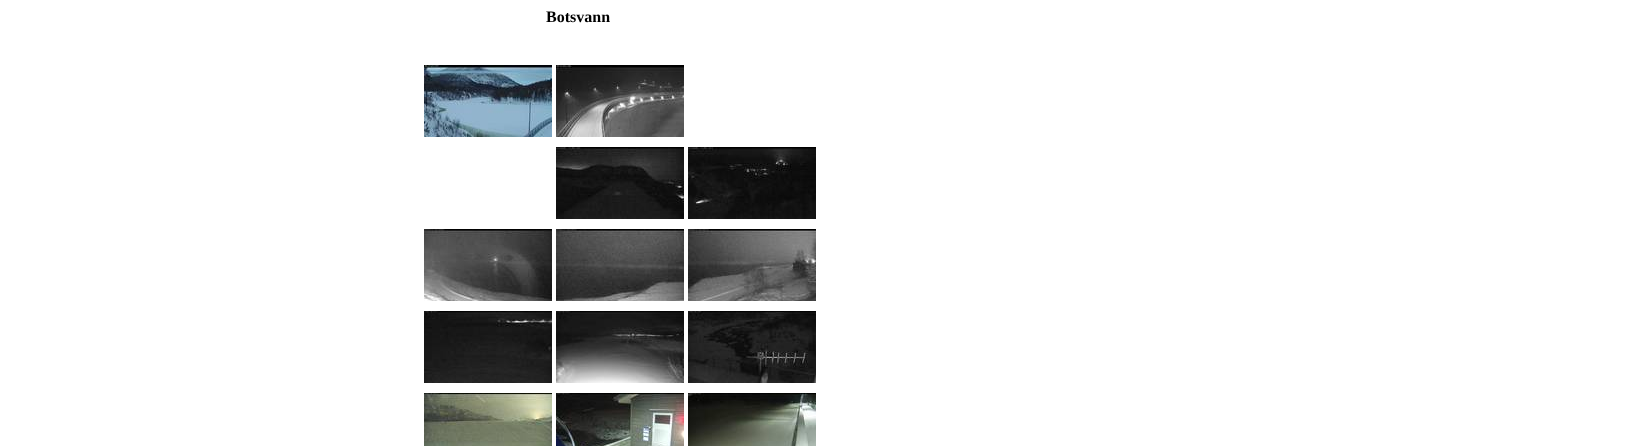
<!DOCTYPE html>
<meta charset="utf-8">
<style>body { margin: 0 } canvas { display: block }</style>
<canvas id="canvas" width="1646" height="446"></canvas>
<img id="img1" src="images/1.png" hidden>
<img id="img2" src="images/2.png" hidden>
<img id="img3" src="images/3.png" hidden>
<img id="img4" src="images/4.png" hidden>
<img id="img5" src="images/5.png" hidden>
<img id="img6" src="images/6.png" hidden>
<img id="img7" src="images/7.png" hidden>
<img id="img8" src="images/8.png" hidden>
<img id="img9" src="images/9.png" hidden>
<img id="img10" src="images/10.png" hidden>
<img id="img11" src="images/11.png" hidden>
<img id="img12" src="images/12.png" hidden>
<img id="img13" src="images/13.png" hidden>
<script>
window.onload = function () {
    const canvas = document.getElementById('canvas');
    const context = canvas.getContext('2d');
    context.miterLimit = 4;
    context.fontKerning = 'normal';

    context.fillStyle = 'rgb(255, 255, 255)';
    context.fillRect(0, 0, 1646, 446);
    context.drawImage(document.getElementById('img1'), 424, 65, 128, 72);
    context.drawImage(document.getElementById('img2'), 556, 65, 128, 72);
    context.drawImage(document.getElementById('img3'), 556, 147, 128, 72);
    context.drawImage(document.getElementById('img4'), 688, 147, 128, 72);
    context.drawImage(document.getElementById('img5'), 424, 229, 128, 72);
    context.drawImage(document.getElementById('img6'), 556, 229, 128, 72);
    context.drawImage(document.getElementById('img7'), 688, 229, 128, 72);
    context.drawImage(document.getElementById('img8'), 424, 311, 128, 72);
    context.drawImage(document.getElementById('img9'), 556, 311, 128, 72);
    context.drawImage(document.getElementById('img10'), 688, 311, 128, 72);
    context.drawImage(document.getElementById('img11'), 424, 393, 128, 53);
    context.drawImage(document.getElementById('img12'), 556, 393, 128, 53);
    context.drawImage(document.getElementById('img13'), 688, 393, 128, 53);
    context.font = 'bold 16px Liberation Serif';
    context.fillStyle = 'rgb(0, 0, 0)';
    context.fillText('Botsvann', 546, 22);
};
</script>
